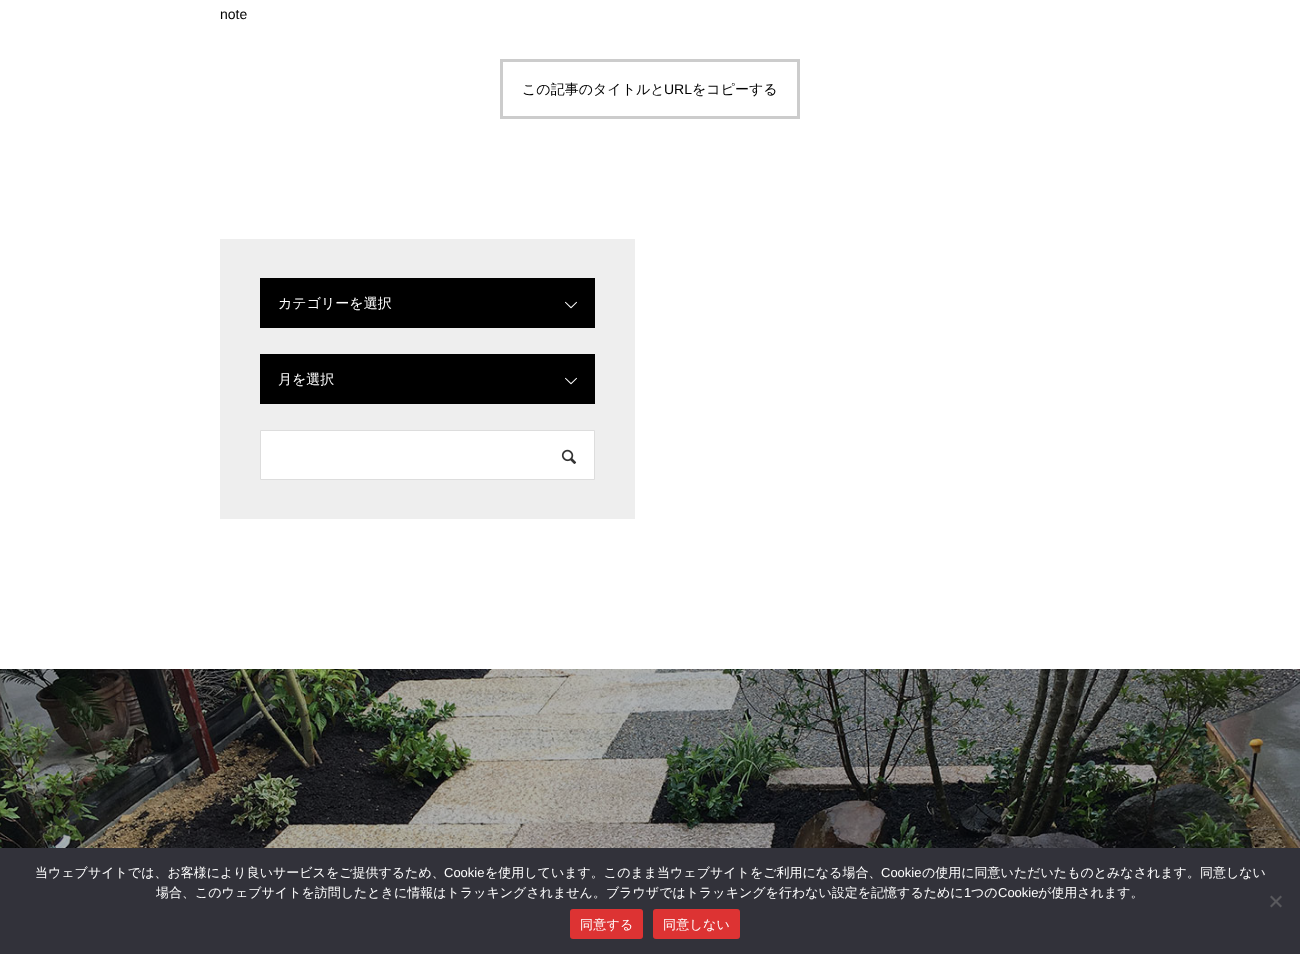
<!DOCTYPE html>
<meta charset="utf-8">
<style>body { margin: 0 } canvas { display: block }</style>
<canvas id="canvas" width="1300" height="954"></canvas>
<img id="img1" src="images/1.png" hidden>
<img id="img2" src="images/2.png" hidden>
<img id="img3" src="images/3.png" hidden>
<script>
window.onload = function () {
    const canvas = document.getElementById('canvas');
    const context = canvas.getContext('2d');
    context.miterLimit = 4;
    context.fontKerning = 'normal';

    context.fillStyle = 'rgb(255, 255, 255)';
    context.fillRect(0, 0, 1300, 954);
    context.strokeStyle = 'rgb(204, 204, 204)';
    context.lineWidth = 3;
    context.strokeRect(501.5, 60.5, 297, 57);
    context.fillStyle = 'rgb(238, 238, 238)';
    context.fillRect(220, 239, 415, 280);
    context.fillStyle = 'rgb(0, 0, 0)';
    context.fillRect(260, 278, 335, 50);
    context.drawImage(document.getElementById('img1'), 565, 301, 12, 8);
    context.fillRect(260, 354, 335, 50);
    context.drawImage(document.getElementById('img1'), 565, 377, 12, 8);
    context.fillStyle = 'rgb(255, 255, 255)';
    context.beginPath();
    context.rect(260.5, 430.5, 334, 49);
    context.fill();
    context.strokeStyle = 'rgb(221, 221, 221)';
    context.lineWidth = 1;
    context.stroke();
    context.drawImage(document.getElementById('img2'), 561, 449, 16, 15);
    context.drawImage(document.getElementById('img3'), 0, 669, 1300, 179);
    context.save();
    context.beginPath();
    context.moveTo(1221, 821);
    context.lineTo(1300, 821);
    context.lineTo(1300, 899);
    context.lineTo(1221, 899);
    context.closePath();
    context.moveTo(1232, 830);
    context.lineTo(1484, 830);
    context.bezierCurveTo(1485, 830, 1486, 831, 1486, 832);
    context.lineTo(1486, 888);
    context.bezierCurveTo(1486, 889, 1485, 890, 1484, 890);
    context.lineTo(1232, 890);
    context.bezierCurveTo(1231, 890, 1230, 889, 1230, 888);
    context.lineTo(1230, 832);
    context.bezierCurveTo(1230, 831, 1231, 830, 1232, 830);
    context.closePath();
    context.clip('evenodd');
    context.fillStyle = 'rgb(90, 90, 90)';
    context.filter = 'blur(2.5px)';
    context.beginPath();
    context.roundRect(1230, 830, 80, 60, 2);
    context.fill();
    context.filter = 'none';
    context.restore();
    context.fillStyle = 'rgb(50, 50, 58)';
    context.fillRect(0, 848, 1300, 106);
    context.fillStyle = 'rgb(89, 89, 93)';
    context.beginPath();
    context.moveTo(1280.5, 895.5);
    context.lineTo(1282, 897);
    context.lineTo(1271.5, 907.5);
    context.lineTo(1270, 906);
    context.closePath();
    context.fill();
    context.beginPath();
    context.moveTo(1270, 897);
    context.lineTo(1271.5, 895.5);
    context.lineTo(1282, 906);
    context.lineTo(1280.5, 907.5);
    context.closePath();
    context.fill();
    context.fillStyle = 'rgb(221, 51, 51)';
    context.beginPath();
    context.roundRect(570, 909, 73, 30, 3);
    context.fill();
    context.beginPath();
    context.roundRect(653, 909, 87, 30, 3);
    context.fill();
    context.font = '14px Liberation Sans';
    context.fillStyle = 'rgb(0, 0, 0)';
    context.fillText('note', 220, 19);
    context.font = '500 14px WenQuanYi Zen Hei';
    context.fillText('この記事のタイトルと', 522, 94);
    context.font = '14px Liberation Sans';
    context.fillText('URL', 664, 94);
    context.font = '500 14px WenQuanYi Zen Hei';
    context.fillText('をコピーする', 692, 94);
    context.fillStyle = 'rgb(255, 255, 255)';
    context.fillText('カテゴリーを選択', 278, 308);
    context.fillText('月を選択', 278, 384);
    context.font = '500 13px WenQuanYi Zen Hei';
    context.fillText('当ウェブサイトでは、お客様により良いサービスをご提供するため、', 35, 877);
    context.font = '13px Liberation Sans';
    context.fillText('Cookie', 444, 877);
    context.font = '500 13px WenQuanYi Zen Hei';
    context.fillText('を使用しています。このまま当ウェブサイトをご利用になる場合、', 485, 877);
    context.font = '13px Liberation Sans';
    context.fillText('Cookie', 881, 877);
    context.font = '500 13px WenQuanYi Zen Hei';
    context.fillText('の使用に同意いただいたものとみなされます。同意しない', 922, 877);
    context.fillText('場合、このウェブサイトを訪問したときに情報はトラッキングされません。ブラウザではトラッキングを行わない設定を記憶するために', 156, 897);
    context.font = '13px Liberation Sans';
    context.fillText('1', 964, 897);
    context.font = '500 13px WenQuanYi Zen Hei';
    context.fillText('つの', 971, 897);
    context.font = '13px Liberation Sans';
    context.fillText('Cookie', 998, 897);
    context.font = '500 13px WenQuanYi Zen Hei';
    context.fillText('が使用されます。', 1038, 897);
    context.letterSpacing = '0.25px';
    context.fillText('同意する', 580, 929);
    context.fillText('同意しない', 663, 929);
};
</script>
